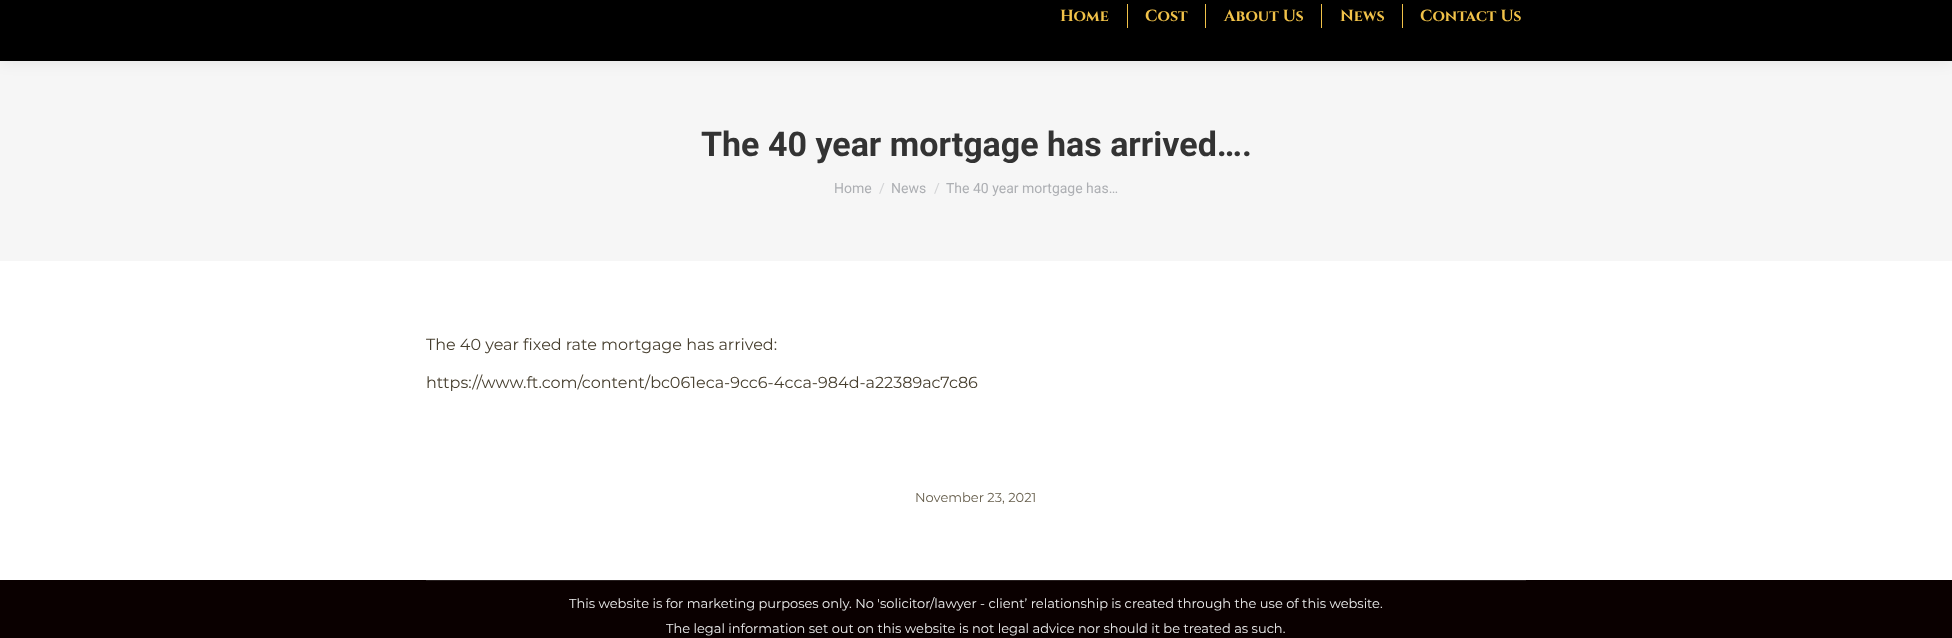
<!DOCTYPE html>
<meta charset="utf-8">
<style>body { margin: 0 } canvas { display: block }</style>
<canvas id="canvas" width="1952" height="638"></canvas>
<script>
window.onload = function () {
    const canvas = document.getElementById('canvas');
    const context = canvas.getContext('2d');
    context.miterLimit = 4;
    context.fontKerning = 'normal';

    context.fillStyle = 'rgb(255, 255, 255)';
    context.fillRect(0, 0, 1952, 638);
    context.fillStyle = 'rgb(246, 246, 246)';
    context.fillRect(0, 61, 1952, 200);
    context.fillStyle = 'rgba(0, 0, 0, 0.07)';
    context.filter = 'blur(7.5px)';
    context.beginPath();
    context.rect(-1, -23, 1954, 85);
    context.fill();
    context.filter = 'none';
    context.fillStyle = 'rgb(0, 0, 0)';
    context.fillRect(0, 0, 1952, 61);
    context.fillStyle = 'rgb(241, 194, 73)';
    context.fillRect(1127, 4, 1, 24);
    context.fillRect(1205, 4, 1, 24);
    context.fillRect(1321, 4, 1, 24);
    context.fillRect(1402, 4, 1, 24);
    context.fillStyle = 'rgb(10, 0, 0)';
    context.fillRect(0, 580, 1952, 58);
    context.fillStyle = 'rgb(39, 31, 31)';
    context.fillRect(426, 580, 1100, 1);
    context.font = 'bold 16px Cinzel';
    context.fillStyle = 'rgb(241, 194, 73)';
    context.fillText('Home', 1060, 21);
    context.fillText('Cost', 1145, 21);
    context.fillText('About Us', 1224, 21);
    context.fillText('News', 1340, 21);
    context.fillText('Contact Us', 1420, 21);
    context.font = 'bold 34px Roboto';
    context.fillStyle = 'rgb(51, 51, 51)';
    context.fillText('The 40 year mortgage has arrived….', 701, 156);
    context.font = '14px Roboto';
    context.fillStyle = 'rgb(173, 175, 179)';
    context.fillText('Home', 834, 193);
    context.fillStyle = 'rgb(210, 211, 213)';
    context.fillText('/', 879, 193);
    context.fillStyle = 'rgb(173, 175, 179)';
    context.fillText('News', 891, 193);
    context.fillStyle = 'rgb(210, 211, 213)';
    context.fillText('/', 934, 193);
    context.fillStyle = 'rgb(173, 175, 179)';
    context.fillText('The 40 year mortgage has…', 946, 193);
    context.font = '16px Montserrat';
    context.fillStyle = 'rgb(71, 63, 47)';
    context.fillText('The 40 year fixed rate mortgage has arrived:', 426, 350);
    context.fillText('https://www.ft.com/content/bc061eca-9cc6-4cca-984d-a22389ac7c86', 426, 388);
    context.font = '13px Montserrat';
    context.fillStyle = 'rgb(102, 94, 76)';
    context.fillText('November 23, 2021', 915, 502);
    context.fillStyle = 'rgb(238, 238, 238)';
    context.fillText('This website is for marketing purposes only. No \'solicitor/lawyer - client’ relationship is created through the use of this website.', 569, 608);
    context.fillText('The legal information set out on this website is not legal advice nor should it be treated as such.', 666, 633);
};
</script>
